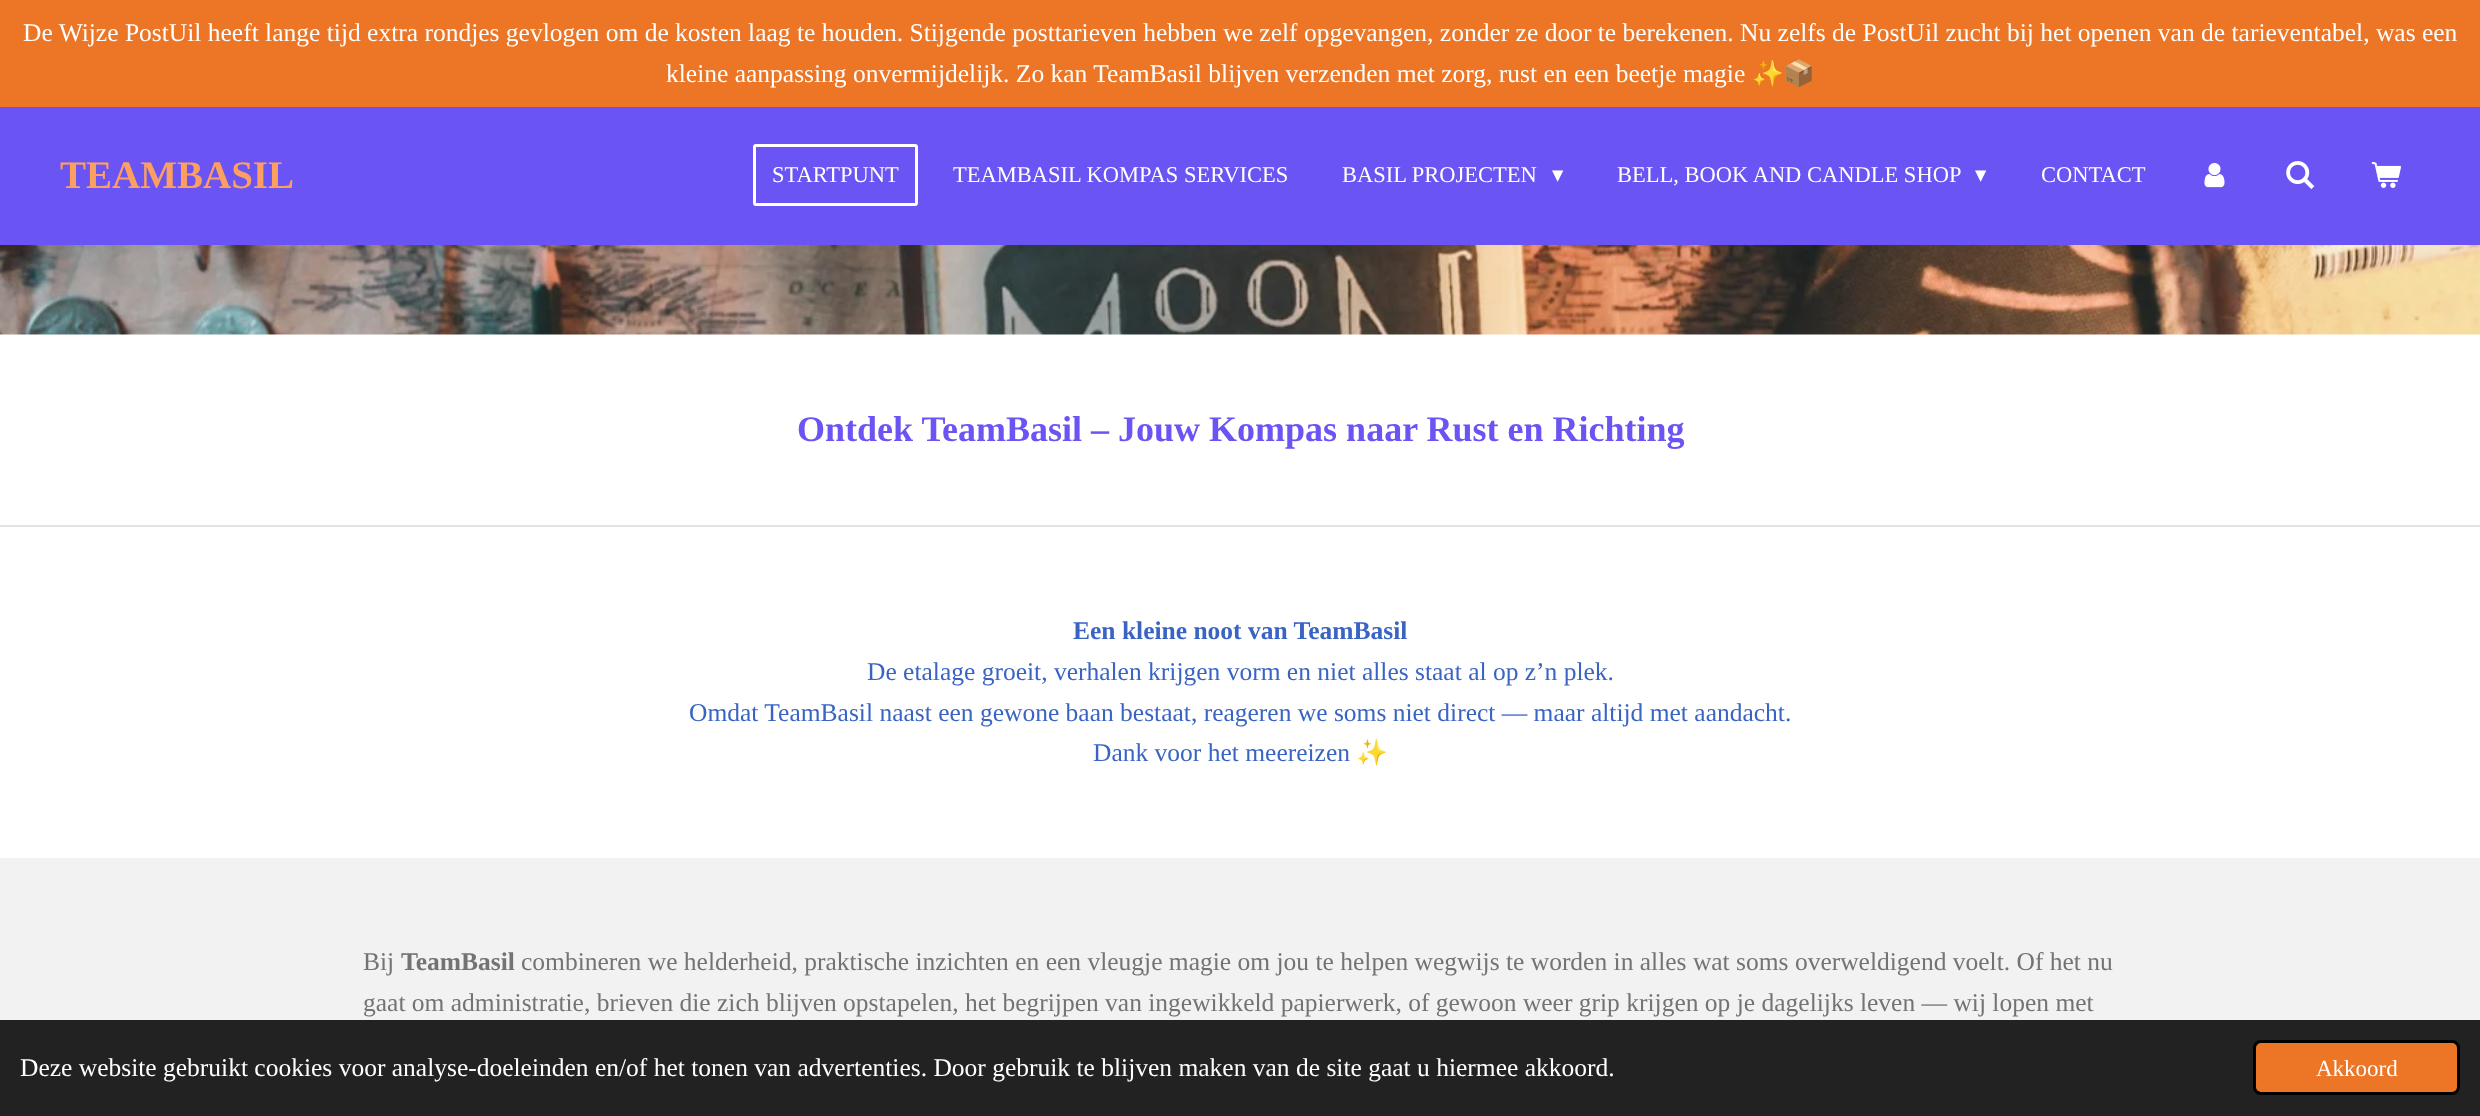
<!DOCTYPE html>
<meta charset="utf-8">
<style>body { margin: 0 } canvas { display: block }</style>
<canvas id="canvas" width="2480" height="1116"></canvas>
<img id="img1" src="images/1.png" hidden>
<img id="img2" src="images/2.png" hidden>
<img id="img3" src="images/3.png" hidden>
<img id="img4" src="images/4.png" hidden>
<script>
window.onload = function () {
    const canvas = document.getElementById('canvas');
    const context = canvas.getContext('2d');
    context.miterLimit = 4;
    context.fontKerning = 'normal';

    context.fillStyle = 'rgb(255, 255, 255)';
    context.fillRect(0, 0, 2480, 1116);
    context.fillStyle = 'rgb(236, 117, 38)';
    context.fillRect(0, 0, 2480, 107);
    context.fillStyle = 'rgb(107, 84, 244)';
    context.fillRect(0, 107, 2480, 138);
    context.beginPath();
    context.roundRect(754.5, 145.5, 162, 59, 1.5);
    context.strokeStyle = 'rgb(255, 255, 255)';
    context.lineWidth = 3;
    context.stroke();
    context.drawImage(document.getElementById('img1'), 2204, 163, 21, 25);
    context.drawImage(document.getElementById('img2'), 2286, 161, 29, 29);
    context.drawImage(document.getElementById('img3'), 2371, 161, 30, 27);
    context.drawImage(document.getElementById('img4'), 0, 245, 2480, 90);
    context.fillStyle = 'rgb(227, 227, 227)';
    context.fillRect(0, 525, 2480, 2);
    context.fillStyle = 'rgb(242, 242, 242)';
    context.fillRect(0, 858, 2480, 162);
    context.fillStyle = 'rgb(34, 34, 34)';
    context.fillRect(0, 1020, 2480, 96);
    context.fillStyle = 'rgb(236, 117, 38)';
    context.beginPath();
    context.roundRect(2254.5, 1041.5, 204, 52, 6.5);
    context.fill();
    context.strokeStyle = 'rgb(0, 0, 0)';
    context.stroke();
    context.font = '25.5px Liberation Serif';
    context.fillStyle = 'rgb(255, 255, 255)';
    context.fillText('De Wijze PostUil heeft lange tijd extra rondjes gevlogen om de kosten laag te houden. Stijgende posttarieven hebben we zelf opgevangen, zonder ze door te berekenen. Nu zelfs de PostUil zucht bij het openen van de tarieventabel, was een', 23, 41);
    context.fillText('kleine aanpassing onvermijdelijk. Zo kan TeamBasil blijven verzenden met zorg, rust en een beetje magie', 666, 82);
    context.font = '25.5px Noto Color Emoji';
    context.fillText('✨📦', 1752, 82);
    context.font = 'bold 39px Liberation Serif';
    context.fillStyle = 'rgb(253, 159, 97)';
    context.fillText('TEAMBASIL', 60, 188);
    context.font = '22.5px Liberation Serif';
    context.fillStyle = 'rgb(255, 255, 255)';
    context.fillText('STARTPUNT', 772, 182);
    context.fillText('TEAMBASIL KOMPAS SERVICES', 953, 182);
    context.fillText('BASIL PROJECTEN', 1342, 182);
    context.font = '22.5px DejaVu Sans';
    context.fillText('▾', 1552, 182);
    context.font = '22.5px Liberation Serif';
    context.fillText('BELL, BOOK AND CANDLE SHOP', 1617, 182);
    context.font = '22.5px DejaVu Sans';
    context.fillText('▾', 1975, 182);
    context.font = '22.5px Liberation Serif';
    context.fillText('CONTACT', 2041, 182);
    context.font = 'bold 36px Liberation Serif';
    context.fillStyle = 'rgb(107, 84, 244)';
    context.fillText('Ontdek TeamBasil – Jouw Kompas naar Rust en Richting', 797, 441);
    context.font = 'bold 25.5px Liberation Serif';
    context.fillStyle = 'rgb(58, 100, 196)';
    context.fillText('Een kleine noot van TeamBasil', 1073, 639);
    context.font = '25.5px Liberation Serif';
    context.fillText('De etalage groeit, verhalen krijgen vorm en niet alles staat al op z’n plek.', 867, 680);
    context.fillText('Omdat TeamBasil naast een gewone baan bestaat, reageren we soms niet direct — maar altijd met aandacht.', 689, 721);
    context.fillText('Dank voor het meereizen', 1093, 761);
    context.font = '25.5px Noto Color Emoji';
    context.fillText('✨', 1356, 761);
    context.font = '25.5px Liberation Serif';
    context.fillStyle = 'rgb(115, 115, 115)';
    context.fillText('Bij', 363, 970);
    context.font = 'bold 25.5px Liberation Serif';
    context.fillText('TeamBasil', 401, 970);
    context.font = '25.5px Liberation Serif';
    context.fillText('combineren we helderheid, praktische inzichten en een vleugje magie om jou te helpen wegwijs te worden in alles wat soms overweldigend voelt. Of het nu', 521, 970);
    context.fillText('gaat om administratie, brieven die zich blijven opstapelen, het begrijpen van ingewikkeld papierwerk, of gewoon weer grip krijgen op je dagelijks leven — wij lopen met', 363, 1011);
    context.fillStyle = 'rgb(255, 255, 255)';
    context.fillText('Deze website gebruikt cookies voor analyse-doeleinden en/of het tonen van advertenties. Door gebruik te blijven maken van de site gaat u hiermee akkoord.', 20, 1076);
    context.font = '23px Liberation Serif';
    context.fillText('Akkoord', 2316, 1076);
};
</script>
